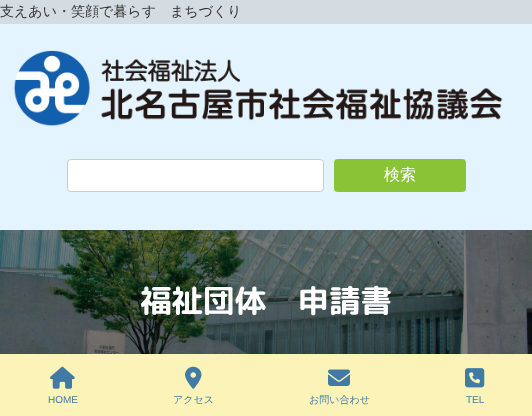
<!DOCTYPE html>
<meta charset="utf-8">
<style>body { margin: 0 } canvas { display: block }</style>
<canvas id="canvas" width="532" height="416"></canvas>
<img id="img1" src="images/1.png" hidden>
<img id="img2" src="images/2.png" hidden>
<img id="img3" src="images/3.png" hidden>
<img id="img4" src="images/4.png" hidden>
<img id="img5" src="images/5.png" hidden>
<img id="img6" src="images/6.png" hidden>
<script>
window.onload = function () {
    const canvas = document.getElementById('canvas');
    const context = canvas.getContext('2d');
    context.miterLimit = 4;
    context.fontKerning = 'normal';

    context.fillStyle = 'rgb(213, 220, 225)';
    context.fillRect(0, 0, 532, 416);
    context.fillStyle = 'rgb(227, 244, 255)';
    context.fillRect(0, 24, 532, 206);
    context.drawImage(document.getElementById('img1'), 14, 50, 489, 76);
    context.fillStyle = 'rgb(255, 255, 255)';
    context.beginPath();
    context.roundRect(67.5, 159.5, 256, 32, 3.5);
    context.fill();
    context.strokeStyle = 'rgb(204, 204, 204)';
    context.stroke();
    context.fillStyle = 'rgb(137, 196, 54)';
    context.beginPath();
    context.roundRect(334, 159, 132, 33, 4);
    context.fill();
    context.drawImage(document.getElementById('img2'), 0, 230, 532, 124);
    context.fillStyle = 'rgb(252, 243, 184)';
    context.fillRect(0, 354, 532, 62);
    context.drawImage(document.getElementById('img3'), 50, 366, 25, 23);
    context.drawImage(document.getElementById('img4'), 185, 366, 17, 23);
    context.drawImage(document.getElementById('img5'), 328, 369, 22, 17);
    context.drawImage(document.getElementById('img6'), 465, 368, 20, 20);
    context.font = '500 14px WenQuanYi Zen Hei';
    context.fillStyle = 'rgb(51, 51, 51)';
    context.fillText('支えあい・笑顔で暮らす　まちづくり', 0, 16);
    context.font = '500 16px WenQuanYi Zen Hei';
    context.fillStyle = 'rgb(255, 255, 255)';
    context.fillText('検索', 384, 180);
    context.font = 'bold 31.5px "Rounded Mplus 1c Bold"';
    context.fillText('福祉団体　申請書', 140, 312);
    context.font = '10px Liberation Sans';
    context.fillStyle = 'rgb(67, 122, 166)';
    context.fillText('HOME', 48, 403);
    context.font = '500 10px WenQuanYi Zen Hei';
    context.fillText('アクセス', 173, 403);
    context.fillText('お問い合わせ', 309, 403);
    context.font = '10px Liberation Sans';
    context.fillText('TEL', 466, 403);
};
</script>
